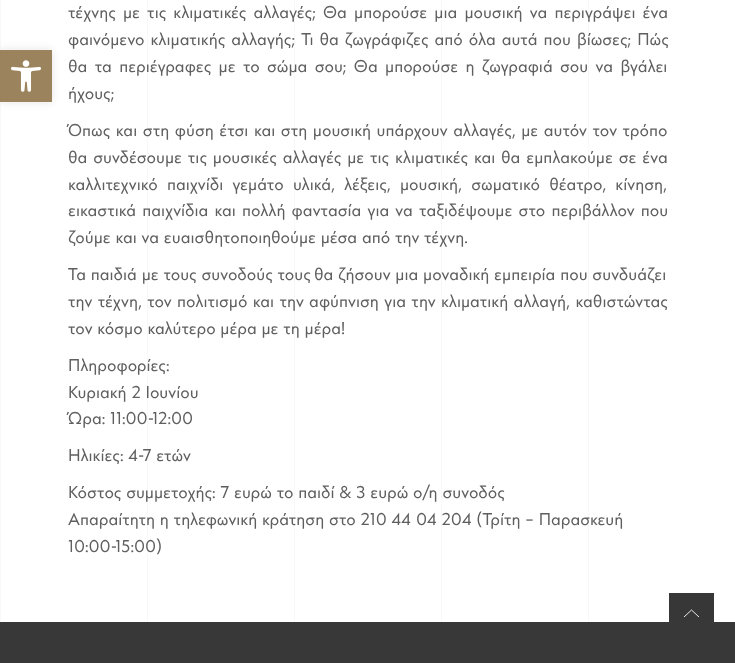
<!DOCTYPE html>
<meta charset="utf-8">
<style>body { margin: 0 } canvas { display: block }</style>
<canvas id="canvas" width="735" height="663"></canvas>
<img id="img1" src="images/1.png" hidden>
<script>
window.onload = function () {
    const canvas = document.getElementById('canvas');
    const context = canvas.getContext('2d');
    context.miterLimit = 4;
    context.fontKerning = 'normal';

    context.fillStyle = 'rgb(56, 56, 56)';
    context.fillRect(0, 0, 735, 663);
    context.fillStyle = 'rgb(255, 255, 255)';
    context.fillRect(1, 0, 734, 622);
    context.fillStyle = 'rgb(248, 248, 248)';
    context.fillRect(0, 0, 1, 622);
    context.fillStyle = 'rgba(0, 0, 0, 0.1)';
    context.filter = 'blur(5px)';
    context.beginPath();
    context.rect(0, 50, 52, 52);
    context.fill();
    context.filter = 'none';
    context.fillStyle = 'rgb(155, 132, 93)';
    context.fillRect(0, 50, 52, 52);
    context.drawImage(document.getElementById('img1'), 11, 60, 30, 32);
    context.fillStyle = 'rgb(248, 248, 248)';
    context.fillRect(147, 0, 1, 622);
    context.fillRect(294, 0, 1, 622);
    context.fillRect(441, 0, 1, 622);
    context.fillRect(588, 0, 1, 622);
    context.fillStyle = 'rgb(55, 55, 55)';
    context.fillRect(669, 593, 45, 29);
    context.beginPath();
    context.moveTo(699, 617);
    context.lineTo(691.5, 610);
    context.lineTo(684, 617);
    context.strokeStyle = 'rgb(255, 255, 255)';
    context.lineWidth = 0.9;
    context.stroke();
    context.wordSpacing = '2.4px';
    context.font = '17px "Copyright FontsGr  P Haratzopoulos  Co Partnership"';
    context.fillStyle = 'rgb(95, 95, 95)';
    context.fillText('τέχνης με τις κλιματικές αλλαγές; Θα μπορούσε μια μουσική να περιγράψει ένα', 68, 18);
    context.wordSpacing = '1.25px';
    context.fillText('φαινόμενο κλιματικής αλλαγής; Τι θα ζωγράφιζες από όλα αυτά που βίωσες; Πώς', 68, 45);
    context.wordSpacing = '2.6px';
    context.fillText('θα τα περιέγραφες με το σώμα σου; Θα μπορούσε η ζωγραφιά σου να βγάλει', 68, 72);
    context.wordSpacing = '0px';
    context.fillText('ήχους;', 68, 99);
    context.wordSpacing = '0.8px';
    context.fillText('Όπως και στη φύση έτσι και στη μουσική υπάρχουν αλλαγές, με αυτόν τον τρόπο', 68, 136);
    context.wordSpacing = '1.1px';
    context.fillText('θα συνδέσουμε τις μουσικές αλλαγές με τις κλιματικές και θα εμπλακούμε σε ένα', 68, 163);
    context.wordSpacing = '4.5px';
    context.fillText('καλλιτεχνικό παιχνίδι γεμάτο υλικά, λέξεις, μουσική, σωματικό θέατρο, κίνηση,', 68, 190);
    context.wordSpacing = '1.4px';
    context.fillText('εικαστικά παιχνίδια και πολλή φαντασία για να ταξιδέψουμε στο περιβάλλον που', 68, 216);
    context.wordSpacing = '0px';
    context.fillText('ζούμε και να ευαισθητοποιηθούμε μέσα από την τέχνη.', 68, 243);
    context.fillText('Τα παιδιά με τους συνοδούς τους', 68, 280);
    context.fillText('θα ζήσουν μια μοναδική εμπειρία που συνδυάζει', 314, 280);
    context.wordSpacing = '0.6px';
    context.fillText('την τέχνη, τον πολιτισμό και την αφύπνιση για την κλιματική αλλαγή, καθιστώντας', 68, 307);
    context.wordSpacing = '0px';
    context.fillText('τον κόσμο καλύτερο μέρα με τη μέρα!', 68, 334);
    context.fillText('Πληροφορίες:', 68, 371);
    context.fillText('Κυριακή 2 Ιουνίου', 68, 398);
    context.fillText('Ώρα: 11:00-12:00', 68, 424);
    context.fillText('Ηλικίες: 4-7 ετών', 68, 461);
    context.fillText('Κόστος συμμετοχής: 7 ευρώ το παιδί & 3 ευρώ ο/η συνοδός', 68, 498);
    context.fillText('Απαραίτητη η τηλεφωνική κράτηση στο 210 44 04 204 (Τρίτη – Παρασκευή', 68, 525);
    context.fillText('10:00-15:00)', 68, 552);
};
</script>
